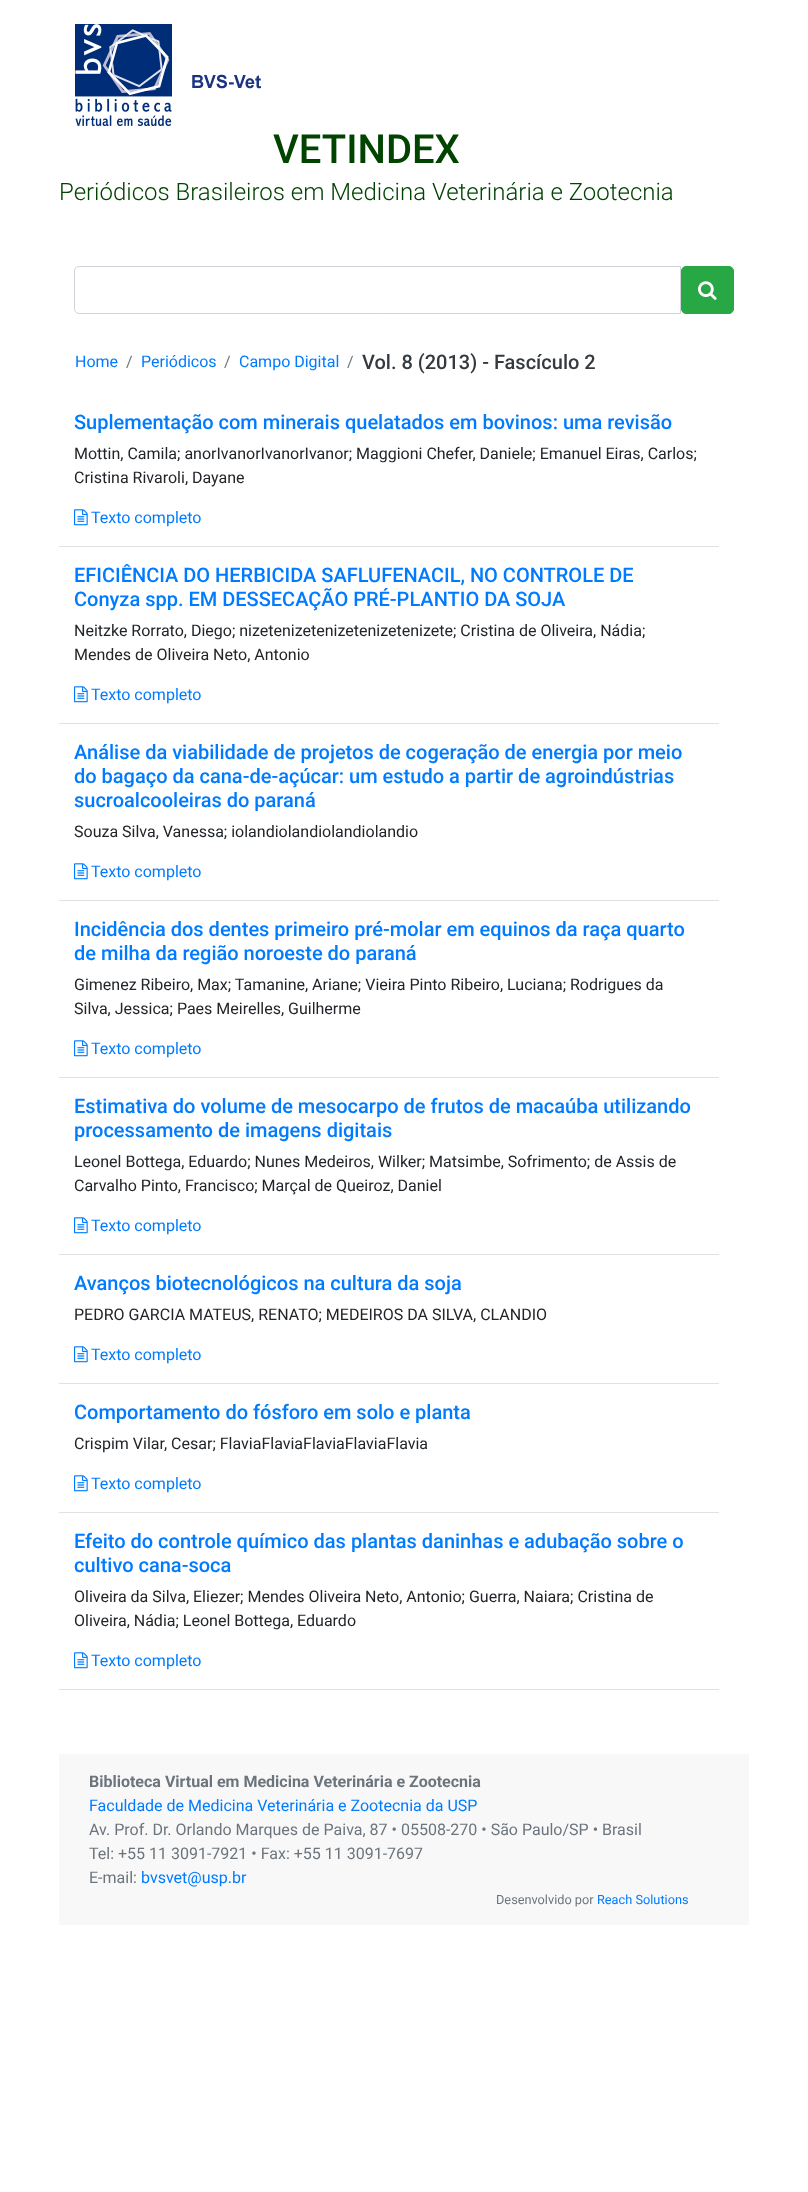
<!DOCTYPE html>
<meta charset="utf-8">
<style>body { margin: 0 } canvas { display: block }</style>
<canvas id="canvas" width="808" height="2192"></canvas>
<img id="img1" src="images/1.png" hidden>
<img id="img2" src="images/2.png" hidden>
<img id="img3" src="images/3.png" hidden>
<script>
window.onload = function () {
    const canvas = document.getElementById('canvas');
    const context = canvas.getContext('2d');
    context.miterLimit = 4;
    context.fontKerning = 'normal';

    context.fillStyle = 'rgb(255, 255, 255)';
    context.fillRect(0, 0, 808, 2192);
    context.drawImage(document.getElementById('img1'), 75, 24, 186, 102);
    context.beginPath();
    context.roundRect(74.5, 266.5, 606, 47, [4.5, 0, 0, 4.5]);
    context.strokeStyle = 'rgb(206, 212, 218)';
    context.stroke();
    context.fillStyle = 'rgb(40, 167, 69)';
    context.beginPath();
    context.roundRect(681.5, 266.5, 52, 47, 4.5);
    context.fill();
    context.strokeStyle = 'rgb(40, 167, 69)';
    context.stroke();
    context.drawImage(document.getElementById('img2'), 698, 281, 19, 19);
    context.fillStyle = 'rgb(222, 226, 230)';
    context.fillRect(59, 546, 660, 1);
    context.drawImage(document.getElementById('img3'), 74, 509, 14, 17);
    context.fillRect(59, 723, 660, 1);
    context.drawImage(document.getElementById('img3'), 74, 686, 14, 17);
    context.fillRect(59, 900, 660, 1);
    context.drawImage(document.getElementById('img3'), 74, 863, 14, 17);
    context.fillRect(59, 1077, 660, 1);
    context.drawImage(document.getElementById('img3'), 74, 1040, 14, 17);
    context.fillRect(59, 1254, 660, 1);
    context.drawImage(document.getElementById('img3'), 74, 1217, 14, 17);
    context.fillRect(59, 1383, 660, 1);
    context.drawImage(document.getElementById('img3'), 74, 1346, 14, 17);
    context.fillRect(59, 1512, 660, 1);
    context.drawImage(document.getElementById('img3'), 74, 1475, 14, 17);
    context.fillRect(59, 1689, 660, 1);
    context.drawImage(document.getElementById('img3'), 74, 1652, 14, 17);
    context.fillStyle = 'rgb(248, 248, 248)';
    context.fillRect(59, 1754, 690, 171);
    context.font = '500 40px Roboto';
    context.fillStyle = 'rgb(0, 68, 0)';
    context.fillText('VETINDEX', 273, 163);
    context.font = '300 24px Roboto';
    context.fillText('Periódicos Brasileiros em Medicina Veterinária e Zootecnia', 59, 200);
    context.font = '16px Roboto';
    context.fillStyle = 'rgb(0, 123, 255)';
    context.fillText('Home', 75, 367);
    context.fillStyle = 'rgb(108, 117, 125)';
    context.fillText('/', 126, 367);
    context.fillStyle = 'rgb(0, 123, 255)';
    context.fillText('Periódicos', 141, 367);
    context.fillStyle = 'rgb(108, 117, 125)';
    context.fillText('/', 224, 367);
    context.fillStyle = 'rgb(0, 123, 255)';
    context.fillText('Campo Digital', 239, 367);
    context.fillStyle = 'rgb(108, 117, 125)';
    context.fillText('/', 347, 367);
    context.font = '500 20px Roboto';
    context.fillStyle = 'rgb(52, 58, 64)';
    context.fillText('Vol. 8 (2013) - Fascículo 2', 362, 369);
    context.fillStyle = 'rgb(0, 123, 255)';
    context.fillText('Suplementação com minerais quelatados em bovinos: uma revisão', 74, 429);
    context.font = '16px Roboto';
    context.fillStyle = 'rgb(33, 37, 41)';
    context.fillText('Mottin, Camila; anorIvanorIvanorIvanor; Maggioni Chefer, Daniele; Emanuel Eiras, Carlos;', 74, 459);
    context.fillText('Cristina Rivaroli, Dayane', 74, 483);
    context.fillStyle = 'rgb(0, 123, 255)';
    context.fillText('Texto completo', 91, 523);
    context.font = '500 20px Roboto';
    context.fillText('EFICIÊNCIA DO HERBICIDA SAFLUFENACIL, NO CONTROLE DE', 74, 582);
    context.fillText('Conyza spp. EM DESSECAÇÃO PRÉ-PLANTIO DA SOJA', 74, 606);
    context.font = '16px Roboto';
    context.fillStyle = 'rgb(33, 37, 41)';
    context.fillText('Neitzke Rorrato, Diego; nizetenizetenizetenizetenizete; Cristina de Oliveira, Nádia;', 74, 636);
    context.fillText('Mendes de Oliveira Neto, Antonio', 74, 660);
    context.fillStyle = 'rgb(0, 123, 255)';
    context.fillText('Texto completo', 91, 700);
    context.font = '500 20px Roboto';
    context.fillText('Análise da viabilidade de projetos de cogeração de energia por meio', 74, 759);
    context.fillText('do bagaço da cana-de-açúcar: um estudo a partir de agroindústrias', 74, 783);
    context.fillText('sucroalcooleiras do paraná', 74, 807);
    context.font = '16px Roboto';
    context.fillStyle = 'rgb(33, 37, 41)';
    context.fillText('Souza Silva, Vanessa; iolandiolandiolandiolandio', 74, 837);
    context.fillStyle = 'rgb(0, 123, 255)';
    context.fillText('Texto completo', 91, 877);
    context.font = '500 20px Roboto';
    context.fillText('Incidência dos dentes primeiro pré-molar em equinos da raça quarto', 74, 936);
    context.fillText('de milha da região noroeste do paraná', 74, 960);
    context.font = '16px Roboto';
    context.fillStyle = 'rgb(33, 37, 41)';
    context.fillText('Gimenez Ribeiro, Max; Tamanine, Ariane; Vieira Pinto Ribeiro, Luciana; Rodrigues da', 74, 990);
    context.fillText('Silva, Jessica; Paes Meirelles, Guilherme', 74, 1014);
    context.fillStyle = 'rgb(0, 123, 255)';
    context.fillText('Texto completo', 91, 1054);
    context.font = '500 20px Roboto';
    context.fillText('Estimativa do volume de mesocarpo de frutos de macaúba utilizando', 74, 1113);
    context.fillText('processamento de imagens digitais', 74, 1137);
    context.font = '16px Roboto';
    context.fillStyle = 'rgb(33, 37, 41)';
    context.fillText('Leonel Bottega, Eduardo; Nunes Medeiros, Wilker; Matsimbe, Sofrimento; de Assis de', 74, 1167);
    context.fillText('Carvalho Pinto, Francisco; Marçal de Queiroz, Daniel', 74, 1191);
    context.fillStyle = 'rgb(0, 123, 255)';
    context.fillText('Texto completo', 91, 1231);
    context.font = '500 20px Roboto';
    context.fillText('Avanços biotecnológicos na cultura da soja', 74, 1290);
    context.font = '16px Roboto';
    context.fillStyle = 'rgb(33, 37, 41)';
    context.fillText('PEDRO GARCIA MATEUS, RENATO; MEDEIROS DA SILVA, CLANDIO', 74, 1320);
    context.fillStyle = 'rgb(0, 123, 255)';
    context.fillText('Texto completo', 91, 1360);
    context.font = '500 20px Roboto';
    context.fillText('Comportamento do fósforo em solo e planta', 74, 1419);
    context.font = '16px Roboto';
    context.fillStyle = 'rgb(33, 37, 41)';
    context.fillText('Crispim Vilar, Cesar; FlaviaFlaviaFlaviaFlaviaFlavia', 74, 1449);
    context.fillStyle = 'rgb(0, 123, 255)';
    context.fillText('Texto completo', 91, 1489);
    context.font = '500 20px Roboto';
    context.fillText('Efeito do controle químico das plantas daninhas e adubação sobre o', 74, 1548);
    context.fillText('cultivo cana-soca', 74, 1572);
    context.font = '16px Roboto';
    context.fillStyle = 'rgb(33, 37, 41)';
    context.fillText('Oliveira da Silva, Eliezer; Mendes Oliveira Neto, Antonio; Guerra, Naiara; Cristina de', 74, 1602);
    context.fillText('Oliveira, Nádia; Leonel Bottega, Eduardo', 74, 1626);
    context.fillStyle = 'rgb(0, 123, 255)';
    context.fillText('Texto completo', 91, 1666);
    context.font = 'bold 16px Roboto';
    context.fillStyle = 'rgb(108, 117, 125)';
    context.fillText('Biblioteca Virtual em Medicina Veterinária e Zootecnia', 89, 1787);
    context.font = '16px Roboto';
    context.fillStyle = 'rgb(0, 123, 255)';
    context.fillText('Faculdade de Medicina Veterinária e Zootecnia da USP', 89, 1811);
    context.fillStyle = 'rgb(108, 117, 125)';
    context.fillText('Av. Prof. Dr. Orlando Marques de Paiva, 87 • 05508-270 • São Paulo/SP • Brasil', 89, 1835);
    context.fillText('Tel: +55 11 3091-7921 • Fax: +55 11 3091-7697', 89, 1859);
    context.fillText('E-mail:', 89, 1883);
    context.fillStyle = 'rgb(0, 123, 255)';
    context.fillText('bvsvet@usp.br', 141, 1883);
    context.font = '12.75px Roboto';
    context.fillStyle = 'rgb(108, 117, 125)';
    context.fillText('Desenvolvido por', 496, 1904);
    context.fillStyle = 'rgb(0, 123, 255)';
    context.fillText('Reach Solutions', 597, 1904);
};
</script>
